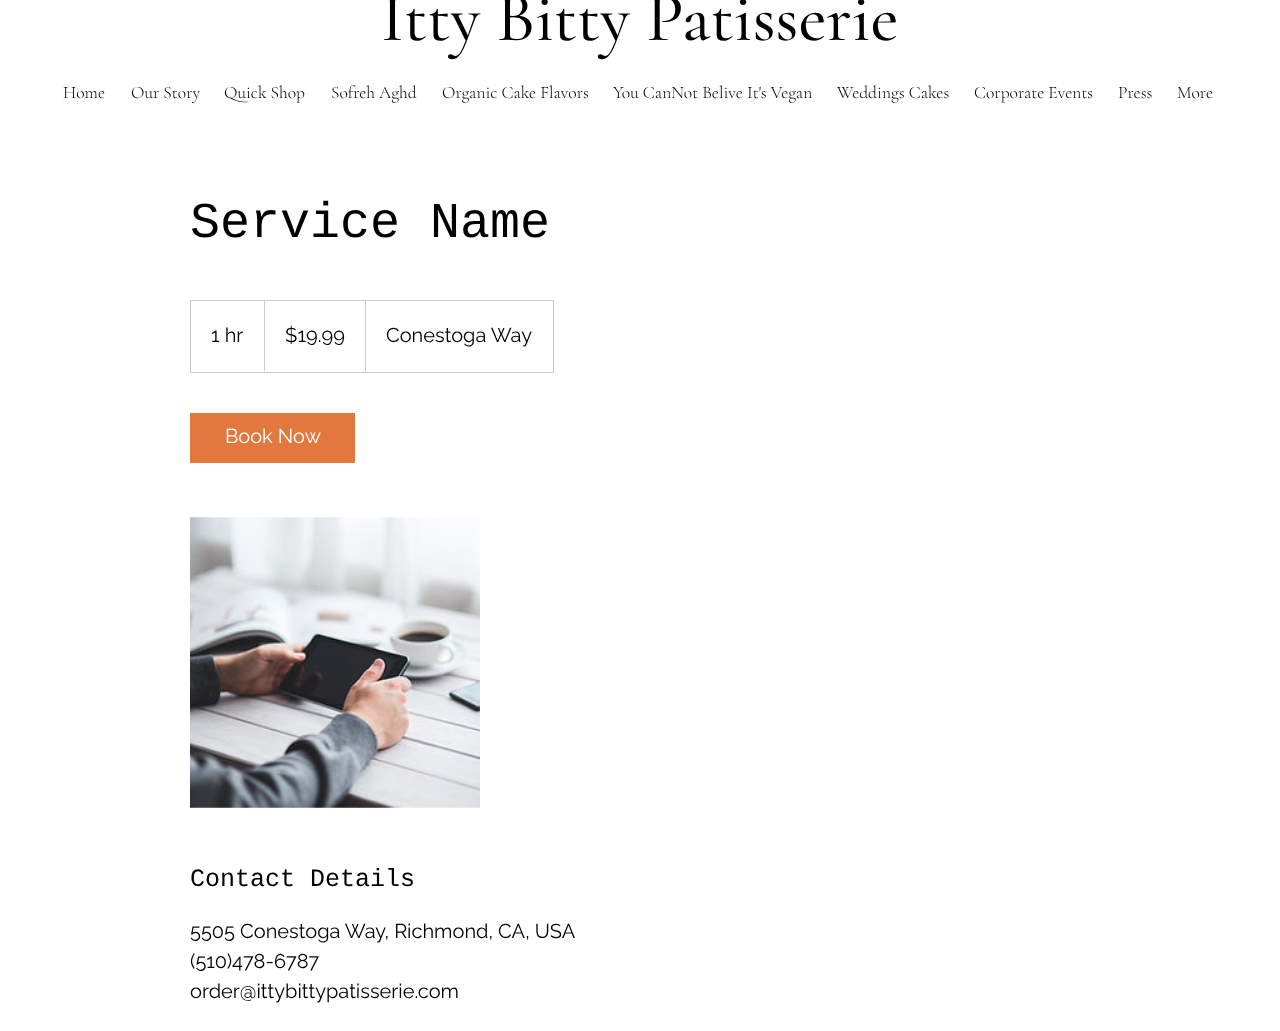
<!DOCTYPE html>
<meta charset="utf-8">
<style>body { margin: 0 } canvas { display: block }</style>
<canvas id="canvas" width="1280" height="1031"></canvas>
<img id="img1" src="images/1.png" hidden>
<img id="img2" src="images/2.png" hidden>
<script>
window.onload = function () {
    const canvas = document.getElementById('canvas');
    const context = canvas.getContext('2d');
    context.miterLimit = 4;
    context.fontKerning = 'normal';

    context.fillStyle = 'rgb(255, 255, 255)';
    context.fillRect(0, 0, 1280, 1031);
    context.strokeStyle = 'rgb(204, 204, 204)';
    context.strokeRect(190.5, 300.5, 363, 72);
    context.fillStyle = 'rgb(204, 204, 204)';
    context.beginPath();
    context.moveTo(264, 371);
    context.lineTo(264, 300);
    context.lineTo(265, 301);
    context.lineTo(265, 371);
    context.closePath();
    context.fill();
    context.beginPath();
    context.moveTo(365, 371);
    context.lineTo(365, 300);
    context.lineTo(366, 301);
    context.lineTo(366, 371);
    context.closePath();
    context.fill();
    context.fillStyle = 'rgb(227, 120, 62)';
    context.fillRect(190, 413, 165, 50);
    context.drawImage(document.getElementById('img1'), 190, 517, 290, 291);
    context.drawImage(document.getElementById('img2'), 190, 517, 290, 291);
    context.font = '500 68.75px Cormorant Garamond';
    context.fillStyle = 'rgb(0, 0, 0)';
    context.fillText('Itty Bitty Patisserie', 381, 40);
    context.font = '300 17.5px Cormorant Garamond';
    context.fillText('Home', 63, 98);
    context.fillText('Our Story', 131, 98);
    context.fillText('Quick Shop', 224, 98);
    context.fillText('Sofreh Aghd', 331, 98);
    context.fillText('Organic Cake Flavors', 442, 98);
    context.fillText('You CanNot Belive It\'s Vegan', 613, 98);
    context.fillText('Weddings Cakes', 837, 98);
    context.fillText('Corporate Events', 974, 98);
    context.fillText('Press', 1118, 98);
    context.fillText('More', 1177, 98);
    context.font = '50px Liberation Mono';
    context.fillText('Service Name', 190, 237);
    context.font = '20px Raleway';
    context.fillText('1 hr', 211, 342);
    context.fillText('$19.99', 285, 342);
    context.fillText('Conestoga Way', 386, 342);
    context.fillStyle = 'rgb(255, 255, 255)';
    context.fillText('Book Now', 225, 443);
    context.font = '25px Liberation Mono';
    context.fillStyle = 'rgb(0, 0, 0)';
    context.fillText('Contact Details', 190, 886);
    context.font = '20px Raleway';
    context.fillText('5505 Conestoga Way, Richmond, CA, USA', 190, 938);
    context.fillText('(510)478-6787', 190, 968);
    context.fillText('order@ittybittypatisserie.com', 190, 998);
};
</script>
